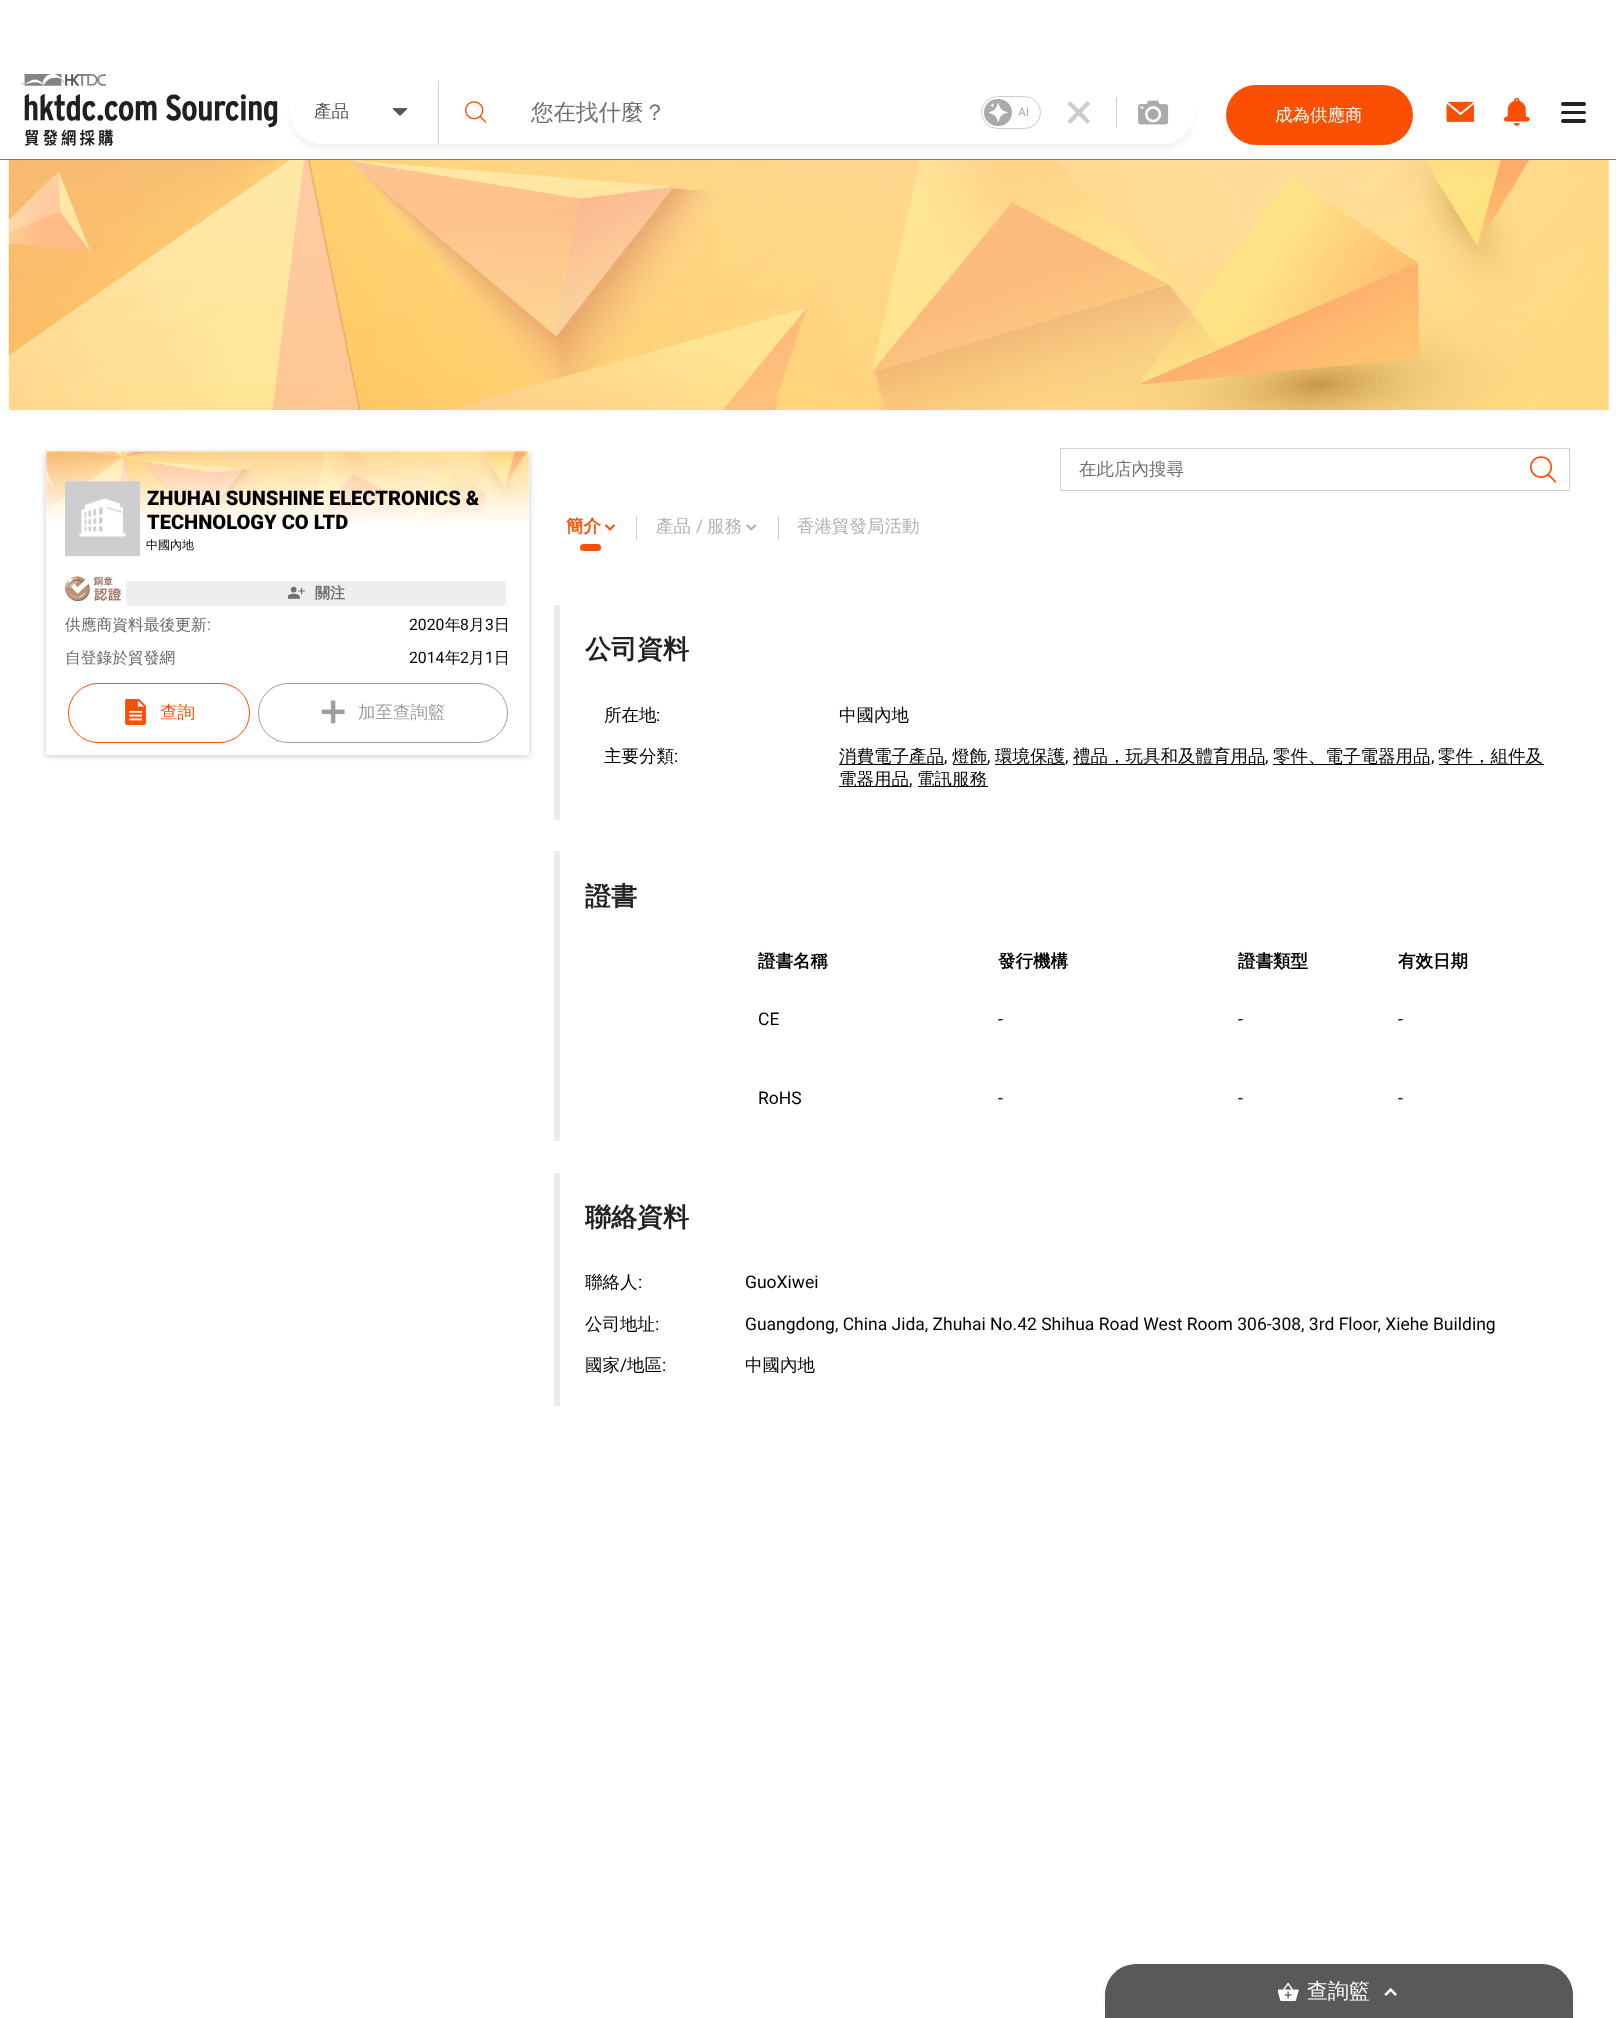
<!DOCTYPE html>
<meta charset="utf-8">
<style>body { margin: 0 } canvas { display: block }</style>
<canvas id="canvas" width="1616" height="2018"></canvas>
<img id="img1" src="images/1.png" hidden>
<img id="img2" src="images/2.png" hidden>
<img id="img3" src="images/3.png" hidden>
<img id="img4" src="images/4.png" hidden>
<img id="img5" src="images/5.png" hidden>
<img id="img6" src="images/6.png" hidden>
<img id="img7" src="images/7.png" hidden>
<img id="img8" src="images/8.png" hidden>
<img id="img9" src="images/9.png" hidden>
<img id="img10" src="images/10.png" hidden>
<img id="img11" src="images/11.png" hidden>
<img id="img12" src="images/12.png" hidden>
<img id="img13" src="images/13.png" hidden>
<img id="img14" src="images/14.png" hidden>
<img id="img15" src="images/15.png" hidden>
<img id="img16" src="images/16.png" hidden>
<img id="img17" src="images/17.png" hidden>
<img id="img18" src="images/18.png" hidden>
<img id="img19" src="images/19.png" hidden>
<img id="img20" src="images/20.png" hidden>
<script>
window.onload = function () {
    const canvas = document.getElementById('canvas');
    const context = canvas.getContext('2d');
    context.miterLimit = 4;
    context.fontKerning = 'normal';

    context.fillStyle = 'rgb(255, 255, 255)';
    context.fillRect(0, 0, 1616, 2018);
    context.fillStyle = 'rgb(251, 80, 4)';
    context.fillRect(0, 159, 1616, 1);
    context.drawImage(document.getElementById('img1'), 21, 74, 257, 72);
    context.save();
    context.beginPath();
    context.moveTo(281, 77);
    context.lineTo(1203, 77);
    context.lineTo(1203, 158);
    context.lineTo(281, 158);
    context.closePath();
    context.moveTo(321.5, 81);
    context.lineTo(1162.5, 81);
    context.bezierCurveTo(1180, 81, 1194, 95, 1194, 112.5);
    context.bezierCurveTo(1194, 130, 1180, 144, 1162.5, 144);
    context.lineTo(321.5, 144);
    context.bezierCurveTo(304, 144, 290, 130, 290, 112.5);
    context.bezierCurveTo(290, 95, 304, 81, 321.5, 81);
    context.closePath();
    context.clip('evenodd');
    context.fillStyle = 'rgba(127, 127, 127, 0.1)';
    context.filter = 'blur(2.5px)';
    context.beginPath();
    context.roundRect(290, 86, 904, 63, 31.5);
    context.fill();
    context.filter = 'none';
    context.restore();
    context.fillStyle = 'rgb(207, 207, 207)';
    context.fillRect(438, 81, 1, 63);
    context.drawImage(document.getElementById('img2'), 392, 108, 16, 8);
    context.drawImage(document.getElementById('img3'), 465, 101, 21, 22);
    context.beginPath();
    context.roundRect(981.5, 96.5, 59, 32, 16);
    context.strokeStyle = 'rgb(204, 204, 204)';
    context.stroke();
    context.drawImage(document.getElementById('img4'), 984, 99, 28, 27);
    context.drawImage(document.getElementById('img5'), 1067, 101, 23, 23);
    context.fillStyle = 'rgb(204, 204, 204)';
    context.fillRect(1116, 98, 1, 30);
    context.drawImage(document.getElementById('img6'), 1138, 100, 31, 25);
    context.fillStyle = 'rgb(251, 80, 4)';
    context.beginPath();
    context.roundRect(1226, 85, 187, 60, 30);
    context.fill();
    context.drawImage(document.getElementById('img7'), 1446, 101, 28, 21);
    context.drawImage(document.getElementById('img8'), 1503, 98, 27, 28);
    context.fillStyle = 'rgb(34, 34, 34)';
    context.beginPath();
    context.roundRect(1561, 102, 25, 4, 2);
    context.fill();
    context.beginPath();
    context.roundRect(1561, 111, 25, 3, 1.5);
    context.fill();
    context.beginPath();
    context.roundRect(1561, 119, 25, 4, 2);
    context.fill();
    context.drawImage(document.getElementById('img9'), 8, 160, 1601, 250);
    context.fillStyle = 'rgba(7, 0, 1, 0.22)';
    context.filter = 'blur(3px)';
    context.beginPath();
    context.roundRect(46, 453, 483, 303, 1);
    context.fill();
    context.filter = 'none';
    context.fillStyle = 'rgb(255, 255, 255)';
    context.beginPath();
    context.roundRect(46, 451, 483, 304, 1);
    context.fill();
    context.drawImage(document.getElementById('img10'), 46, 451, 483, 72);
    context.drawImage(document.getElementById('img11'), 65, 481, 75, 76);
    context.drawImage(document.getElementById('img12'), 65, 576, 56, 25);
    context.fillStyle = 'rgb(238, 238, 238)';
    context.beginPath();
    context.roundRect(126, 581, 380, 25, 4);
    context.fill();
    context.drawImage(document.getElementById('img13'), 288, 586, 17, 13);
    context.beginPath();
    context.roundRect(68.5, 683.5, 181, 59, 29.5);
    context.strokeStyle = 'rgb(251, 80, 4)';
    context.stroke();
    context.drawImage(document.getElementById('img14'), 125, 699, 21, 26);
    context.beginPath();
    context.roundRect(258.5, 683.5, 249, 59, 29.5);
    context.strokeStyle = 'rgb(158, 158, 158)';
    context.stroke();
    context.drawImage(document.getElementById('img15'), 321, 700, 24, 24);
    context.strokeStyle = 'rgb(207, 207, 207)';
    context.strokeRect(1060.5, 448.5, 509, 42);
    context.drawImage(document.getElementById('img16'), 1530, 456, 26, 27);
    context.drawImage(document.getElementById('img17'), 604, 524, 12, 7);
    context.fillStyle = 'rgb(251, 80, 4)';
    context.beginPath();
    context.roundRect(580, 544, 21, 7, 3.5);
    context.fill();
    context.fillStyle = 'rgb(204, 204, 204)';
    context.fillRect(636, 516, 1, 24);
    context.drawImage(document.getElementById('img18'), 746, 524, 11, 7);
    context.fillRect(778, 516, 1, 24);
    context.fillStyle = 'rgb(235, 235, 235)';
    context.fillRect(554, 605, 6, 215);
    context.fillStyle = 'rgb(0, 0, 0)';
    context.fillRect(839, 764, 105, 1);
    context.fillRect(953, 764, 35, 1);
    context.fillRect(995, 764, 70, 1);
    context.fillRect(1073, 764, 192, 1);
    context.fillRect(1273, 764, 157, 1);
    context.fillRect(1439, 764, 105, 1);
    context.fillRect(839, 786, 70, 1);
    context.fillRect(918, 786, 70, 1);
    context.fillStyle = 'rgb(235, 235, 235)';
    context.fillRect(554, 851, 6, 290);
    context.fillRect(554, 1173, 6, 233);
    context.fillStyle = 'rgba(0, 0, 0, 0.06)';
    context.filter = 'blur(3px)';
    context.beginPath();
    context.roundRect(1105, 1968, 468, 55, 31);
    context.fill();
    context.filter = 'none';
    context.fillStyle = 'rgb(89, 89, 91)';
    context.beginPath();
    context.moveTo(1136, 1964);
    context.lineTo(1542, 1964);
    context.bezierCurveTo(1559, 1964, 1573, 1978, 1573, 1995);
    context.lineTo(1573, 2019);
    context.lineTo(1105, 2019);
    context.lineTo(1105, 1995);
    context.bezierCurveTo(1105, 1978, 1119, 1964, 1136, 1964);
    context.closePath();
    context.fill();
    context.drawImage(document.getElementById('img19'), 1278, 1982, 21, 19);
    context.drawImage(document.getElementById('img20'), 1384, 1987, 13, 9);
    context.font = '500 17.5px WenQuanYi Zen Hei';
    context.fillStyle = 'rgb(85, 85, 85)';
    context.fillText('產品', 314, 117);
    context.font = '500 22.5px WenQuanYi Zen Hei';
    context.fillStyle = 'rgb(112, 112, 112)';
    context.fillText('您在找什麼？', 531, 120);
    context.font = '12px Roboto';
    context.fillStyle = 'rgb(170, 170, 170)';
    context.fillText('AI', 1018, 116);
    context.font = '500 17.5px WenQuanYi Zen Hei';
    context.fillStyle = 'rgb(255, 255, 255)';
    context.fillText('成為供應商', 1275, 121);
    context.font = '900 20.1px Roboto';
    context.fillStyle = 'rgb(0, 0, 0)';
    context.fillText('ZHUHAI SUNSHINE ELECTRONICS &', 147, 505);
    context.fillText('TECHNOLOGY CO LTD', 147, 529);
    context.font = '500 12px WenQuanYi Zen Hei';
    context.fillText('中國內地', 146, 549);
    context.font = 'bold 15px WenQuanYi Zen Hei';
    context.fillStyle = 'rgb(112, 112, 112)';
    context.fillText('關注', 315, 598);
    context.font = '500 15.75px WenQuanYi Zen Hei';
    context.fillStyle = 'rgb(105, 105, 105)';
    context.fillText('供應商資料最後更新', 65, 630);
    context.font = '15.75px Roboto';
    context.fillText(':', 207, 630);
    context.fillStyle = 'rgb(0, 0, 0)';
    context.fillText('2020', 409, 630);
    context.font = '500 15.75px WenQuanYi Zen Hei';
    context.fillText('年', 445, 630);
    context.font = '15.75px Roboto';
    context.fillText('8', 460, 630);
    context.font = '500 15.75px WenQuanYi Zen Hei';
    context.fillText('月', 469, 630);
    context.font = '15.75px Roboto';
    context.fillText('3', 485, 630);
    context.font = '500 15.75px WenQuanYi Zen Hei';
    context.fillText('日', 494, 630);
    context.fillStyle = 'rgb(105, 105, 105)';
    context.fillText('自登錄於貿發網', 65, 663);
    context.font = '15.75px Roboto';
    context.fillStyle = 'rgb(0, 0, 0)';
    context.fillText('2014', 409, 663);
    context.font = '500 15.75px WenQuanYi Zen Hei';
    context.fillText('年', 445, 663);
    context.font = '15.75px Roboto';
    context.fillText('2', 460, 663);
    context.font = '500 15.75px WenQuanYi Zen Hei';
    context.fillText('月', 469, 663);
    context.font = '15.75px Roboto';
    context.fillText('1', 485, 663);
    context.font = '500 15.75px WenQuanYi Zen Hei';
    context.fillText('日', 494, 663);
    context.font = '500 17.5px WenQuanYi Zen Hei';
    context.fillStyle = 'rgb(251, 80, 4)';
    context.fillText('查詢', 160, 718);
    context.fillStyle = 'rgb(158, 158, 158)';
    context.fillText('加至查詢籃', 358, 718);
    context.fillStyle = 'rgb(112, 112, 112)';
    context.fillText('在此店內搜尋', 1079, 475);
    context.font = 'bold 17.5px WenQuanYi Zen Hei';
    context.fillStyle = 'rgb(251, 80, 4)';
    context.fillText('簡介', 566, 532);
    context.font = '500 17.5px WenQuanYi Zen Hei';
    context.fillStyle = 'rgb(171, 178, 185)';
    context.fillText('產品', 656, 532);
    context.font = '17.5px Roboto';
    context.fillText('/', 696, 532);
    context.font = '500 17.5px WenQuanYi Zen Hei';
    context.fillText('服務', 707, 532);
    context.fillText('香港貿發局活動', 797, 532);
    context.font = 'bold 26px WenQuanYi Zen Hei';
    context.fillStyle = 'rgb(34, 34, 34)';
    context.fillText('公司資料', 585, 658);
    context.font = '500 17.5px WenQuanYi Zen Hei';
    context.fillStyle = 'rgb(0, 0, 0)';
    context.fillText('所在地', 604, 721);
    context.font = '17.5px Roboto';
    context.fillText(':', 656, 721);
    context.font = '500 17.5px WenQuanYi Zen Hei';
    context.fillText('中國內地', 839, 721);
    context.fillText('主要分類', 604, 762);
    context.font = '17.5px Roboto';
    context.fillText(':', 674, 762);
    context.font = '500 17.5px WenQuanYi Zen Hei';
    context.fillText('消費電子產品', 839, 762);
    context.font = '17.5px Roboto';
    context.fillText(',', 944, 762);
    context.font = '500 17.5px WenQuanYi Zen Hei';
    context.fillText('燈飾', 952, 762);
    context.font = '17.5px Roboto';
    context.fillText(',', 987, 762);
    context.font = '500 17.5px WenQuanYi Zen Hei';
    context.fillText('環境保護', 995, 762);
    context.font = '17.5px Roboto';
    context.fillText(',', 1065, 762);
    context.font = '500 17.5px WenQuanYi Zen Hei';
    context.fillText('禮品，玩具和及體育用品', 1073, 762);
    context.font = '17.5px Roboto';
    context.fillText(',', 1265, 762);
    context.font = '500 17.5px WenQuanYi Zen Hei';
    context.fillText('零件、電子電器用品', 1273, 762);
    context.font = '17.5px Roboto';
    context.fillText(',', 1431, 762);
    context.font = '500 17.5px WenQuanYi Zen Hei';
    context.fillText('零件，組件及', 1438, 762);
    context.fillText('電器用品', 839, 785);
    context.font = '17.5px Roboto';
    context.fillText(',', 909, 785);
    context.font = '500 17.5px WenQuanYi Zen Hei';
    context.fillText('電訊服務', 917, 785);
    context.font = 'bold 26px WenQuanYi Zen Hei';
    context.fillStyle = 'rgb(34, 34, 34)';
    context.fillText('證書', 585, 905);
    context.font = 'bold 17.5px WenQuanYi Zen Hei';
    context.fillStyle = 'rgb(0, 0, 0)';
    context.fillText('證書名稱', 758, 967);
    context.fillText('發行機構', 998, 967);
    context.fillText('證書類型', 1238, 967);
    context.fillText('有效日期', 1398, 967);
    context.font = '17.5px Roboto';
    context.fillText('CE', 758, 1025);
    context.fillText('-', 998, 1025);
    context.fillText('-', 1238, 1025);
    context.fillText('-', 1398, 1025);
    context.fillText('RoHS', 758, 1104);
    context.fillText('-', 998, 1104);
    context.fillText('-', 1238, 1104);
    context.fillText('-', 1398, 1104);
    context.font = 'bold 26px WenQuanYi Zen Hei';
    context.fillStyle = 'rgb(34, 34, 34)';
    context.fillText('聯絡資料', 585, 1226);
    context.font = '500 17.5px WenQuanYi Zen Hei';
    context.fillStyle = 'rgb(0, 0, 0)';
    context.fillText('聯絡人', 585, 1288);
    context.font = '17.5px Roboto';
    context.fillText(':', 638, 1288);
    context.fillText('GuoXiwei', 745, 1288);
    context.font = '500 17.5px WenQuanYi Zen Hei';
    context.fillText('公司地址', 585, 1330);
    context.font = '17.5px Roboto';
    context.fillText(':', 655, 1330);
    context.fillText('Guangdong, China Jida, Zhuhai No.42 Shihua Road West Room 306-308, 3rd Floor, Xiehe Building', 745, 1330);
    context.font = '500 17.5px WenQuanYi Zen Hei';
    context.fillText('國家', 585, 1371);
    context.font = '17.5px Roboto';
    context.fillText('/', 620, 1371);
    context.font = '500 17.5px WenQuanYi Zen Hei';
    context.fillText('地區', 627, 1371);
    context.font = '17.5px Roboto';
    context.fillText(':', 662, 1371);
    context.font = '500 17.5px WenQuanYi Zen Hei';
    context.fillText('中國內地', 745, 1371);
    context.font = '500 21px WenQuanYi Zen Hei';
    context.fillStyle = 'rgb(255, 255, 255)';
    context.fillText('查詢籃', 1307, 1998);
};
</script>
